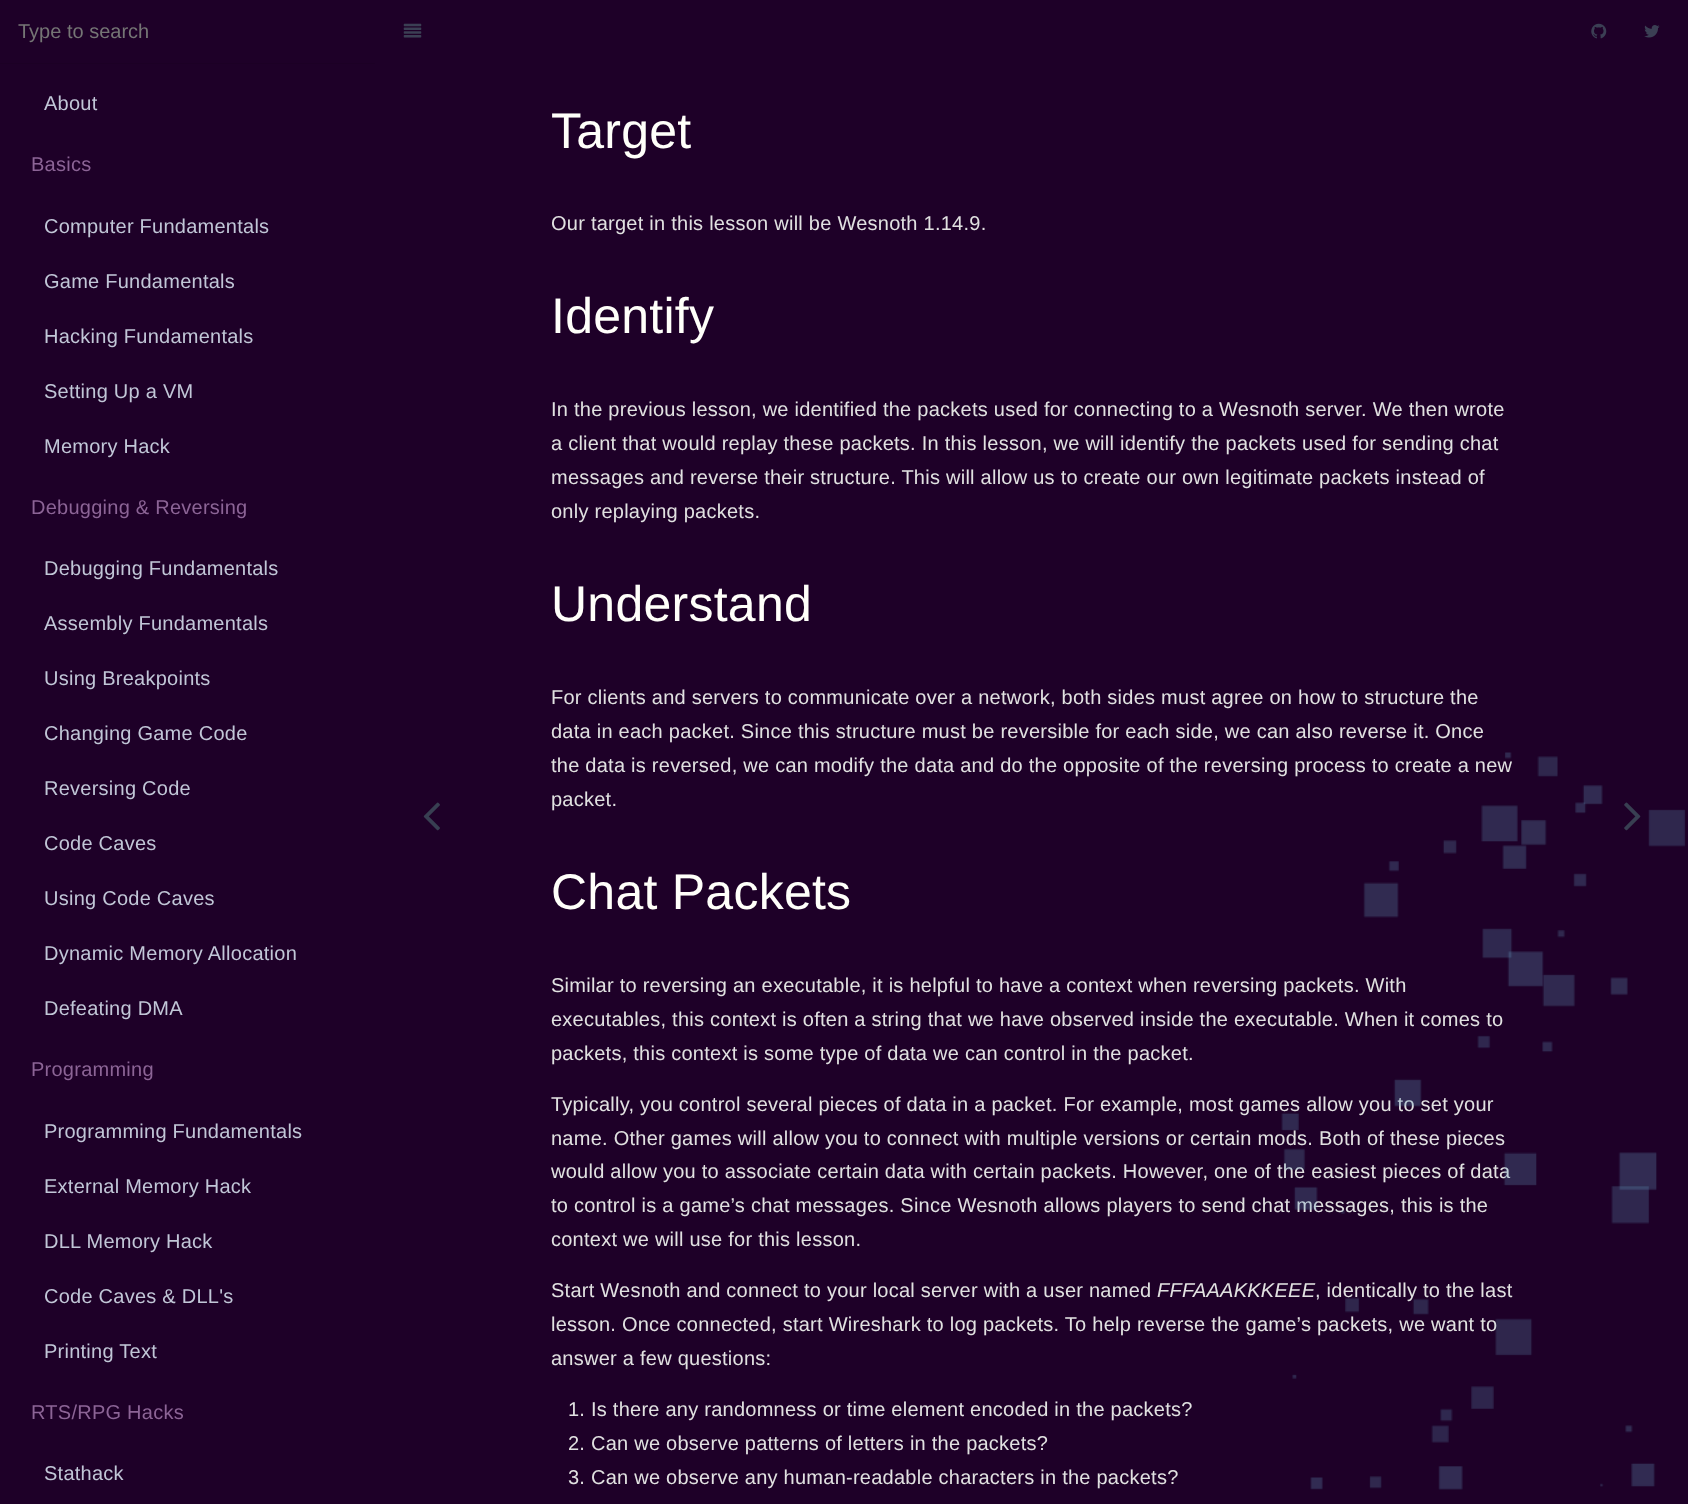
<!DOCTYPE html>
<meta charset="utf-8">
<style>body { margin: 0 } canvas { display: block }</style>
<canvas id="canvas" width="1688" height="1504"></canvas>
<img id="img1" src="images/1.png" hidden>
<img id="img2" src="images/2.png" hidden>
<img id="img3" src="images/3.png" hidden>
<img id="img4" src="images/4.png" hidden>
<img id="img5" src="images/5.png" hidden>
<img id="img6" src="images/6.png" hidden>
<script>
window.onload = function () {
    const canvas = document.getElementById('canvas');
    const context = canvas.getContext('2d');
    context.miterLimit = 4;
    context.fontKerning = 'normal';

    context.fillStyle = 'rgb(30, 0, 40)';
    context.fillRect(0, 0, 1688, 1504);
    context.fillStyle = 'rgb(28, 0, 37)';
    context.fillRect(0, 63, 375, 1);
    context.drawImage(document.getElementById('img1'), 403, 23, 19, 15);
    context.drawImage(document.getElementById('img2'), 1591, 23, 16, 16);
    context.drawImage(document.getElementById('img3'), 1644, 25, 16, 13);
    context.drawImage(document.getElementById('img4'), 423, 802, 17, 29);
    context.drawImage(document.getElementById('img5'), 1624, 802, 17, 29);
    context.font = '20px Liberation Sans';
    context.fillStyle = 'rgb(117, 117, 117)';
    context.fillText('Type to search', 18, 38);
    context.letterSpacing = '0.25px';
    context.fillStyle = 'rgb(193, 198, 215)';
    context.fillText('About', 44, 110);
    context.fillStyle = 'rgb(140, 100, 150)';
    context.fillText('Basics', 31, 171);
    context.fillStyle = 'rgb(193, 198, 215)';
    context.fillText('Computer Fundamentals', 44, 233);
    context.fillText('Game Fundamentals', 44, 288);
    context.fillText('Hacking Fundamentals', 44, 343);
    context.fillText('Setting Up a VM', 44, 398);
    context.fillText('Memory Hack', 44, 453);
    context.fillStyle = 'rgb(140, 100, 150)';
    context.fillText('Debugging & Reversing', 31, 514);
    context.fillStyle = 'rgb(193, 198, 215)';
    context.fillText('Debugging Fundamentals', 44, 575);
    context.fillText('Assembly Fundamentals', 44, 630);
    context.fillText('Using Breakpoints', 44, 685);
    context.fillText('Changing Game Code', 44, 740);
    context.fillText('Reversing Code', 44, 795);
    context.fillText('Code Caves', 44, 850);
    context.fillText('Using Code Caves', 44, 905);
    context.fillText('Dynamic Memory Allocation', 44, 960);
    context.fillText('Defeating DMA', 44, 1015);
    context.fillStyle = 'rgb(140, 100, 150)';
    context.fillText('Programming', 31, 1076);
    context.fillStyle = 'rgb(193, 198, 215)';
    context.fillText('Programming Fundamentals', 44, 1138);
    context.fillText('External Memory Hack', 44, 1193);
    context.fillText('DLL Memory Hack', 44, 1248);
    context.fillText('Code Caves & DLL\'s', 44, 1303);
    context.fillText('Printing Text', 44, 1358);
    context.fillStyle = 'rgb(140, 100, 150)';
    context.fillText('RTS/RPG Hacks', 31, 1419);
    context.fillStyle = 'rgb(193, 198, 215)';
    context.fillText('Stathack', 44, 1480);
    context.font = '50px Liberation Sans';
    context.fillStyle = 'rgb(255, 255, 250)';
    context.fillText('Target', 551, 148);
    context.font = '20px Liberation Sans';
    context.fillStyle = 'rgb(225, 225, 225)';
    context.fillText('Our target in this lesson will be Wesnoth 1.14.9.', 551, 230);
    context.font = '50px Liberation Sans';
    context.fillStyle = 'rgb(255, 255, 250)';
    context.fillText('Identify', 551, 333);
    context.font = '20px Liberation Sans';
    context.fillStyle = 'rgb(225, 225, 225)';
    context.fillText('In the previous lesson, we identified the packets used for connecting to a Wesnoth server. We then wrote', 551, 416);
    context.fillText('a client that would replay these packets. In this lesson, we will identify the packets used for sending chat', 551, 450);
    context.fillText('messages and reverse their structure. This will allow us to create our own legitimate packets instead of', 551, 484);
    context.fillText('only replaying packets.', 551, 518);
    context.font = '50px Liberation Sans';
    context.fillStyle = 'rgb(255, 255, 250)';
    context.fillText('Understand', 551, 621);
    context.font = '20px Liberation Sans';
    context.fillStyle = 'rgb(225, 225, 225)';
    context.fillText('For clients and servers to communicate over a network, both sides must agree on how to structure the', 551, 704);
    context.fillText('data in each packet. Since this structure must be reversible for each side, we can also reverse it. Once', 551, 738);
    context.fillText('the data is reversed, we can modify the data and do the opposite of the reversing process to create a new', 551, 772);
    context.fillText('packet.', 551, 806);
    context.font = '50px Liberation Sans';
    context.fillStyle = 'rgb(255, 255, 250)';
    context.fillText('Chat Packets', 551, 909);
    context.font = '20px Liberation Sans';
    context.fillStyle = 'rgb(225, 225, 225)';
    context.fillText('Similar to reversing an executable, it is helpful to have a context when reversing packets. With', 551, 992);
    context.fillText('executables, this context is often a string that we have observed inside the executable. When it comes to', 551, 1026);
    context.fillText('packets, this context is some type of data we can control in the packet.', 551, 1060);
    context.fillText('Typically, you control several pieces of data in a packet. For example, most games allow you to set your', 551, 1111);
    context.fillText('name. Other games will allow you to connect with multiple versions or certain mods. Both of these pieces', 551, 1145);
    context.fillText('would allow you to associate certain data with certain packets. However, one of the easiest pieces of data', 551, 1178);
    context.fillText('to control is a game’s chat messages. Since Wesnoth allows players to send chat messages, this is the', 551, 1212);
    context.fillText('context we will use for this lesson.', 551, 1246);
    context.fillText('Start Wesnoth and connect to your local server with a user named', 551, 1297);
    context.font = 'italic 20px Liberation Sans';
    context.fillText('FFFAAAKKKEEE', 1157, 1297);
    context.font = '20px Liberation Sans';
    context.fillText(', identically to the last', 1315, 1297);
    context.fillText('lesson. Once connected, start Wireshark to log packets. To help reverse the game’s packets, we want to', 551, 1331);
    context.fillText('answer a few questions:', 551, 1365);
    context.fillText('1. Is there any randomness or time element encoded in the packets?', 568, 1416);
    context.fillText('2. Can we observe patterns of letters in the packets?', 568, 1450);
    context.fillText('3. Can we observe any human-readable characters in the packets?', 568, 1484);
    context.drawImage(document.getElementById('img6'), 1281, 752, 405, 738);
};
</script>
